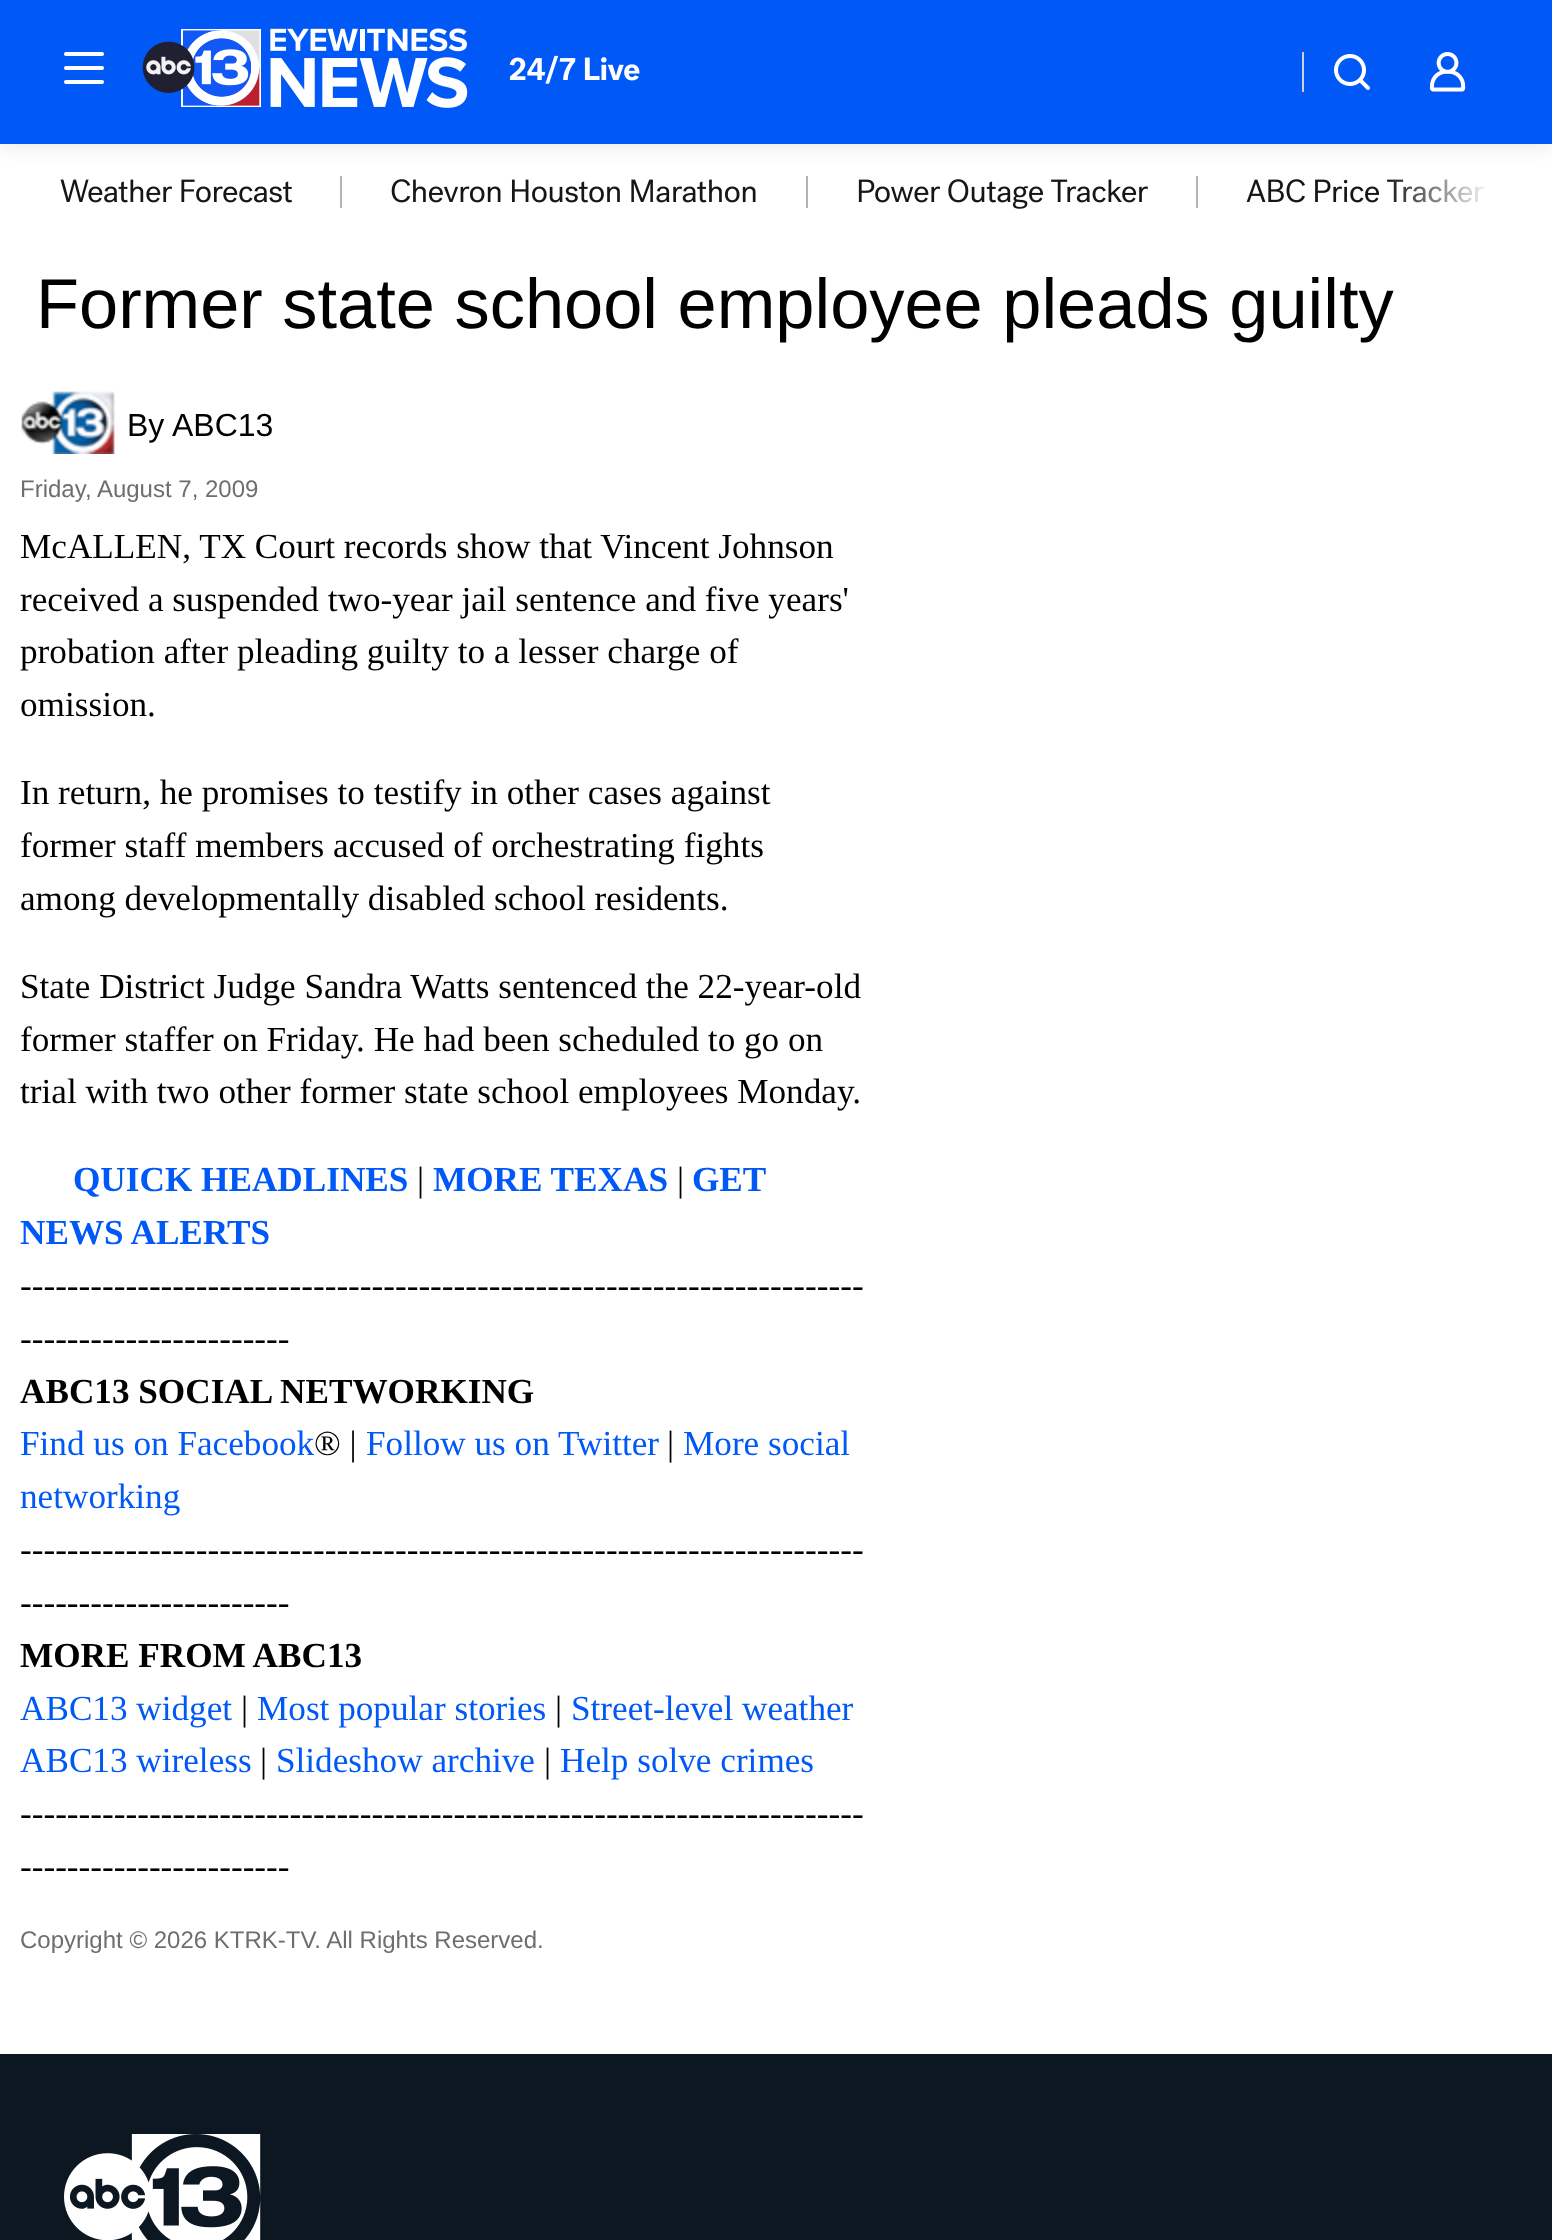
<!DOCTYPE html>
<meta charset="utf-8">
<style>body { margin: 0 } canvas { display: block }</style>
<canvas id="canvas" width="1552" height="2240"></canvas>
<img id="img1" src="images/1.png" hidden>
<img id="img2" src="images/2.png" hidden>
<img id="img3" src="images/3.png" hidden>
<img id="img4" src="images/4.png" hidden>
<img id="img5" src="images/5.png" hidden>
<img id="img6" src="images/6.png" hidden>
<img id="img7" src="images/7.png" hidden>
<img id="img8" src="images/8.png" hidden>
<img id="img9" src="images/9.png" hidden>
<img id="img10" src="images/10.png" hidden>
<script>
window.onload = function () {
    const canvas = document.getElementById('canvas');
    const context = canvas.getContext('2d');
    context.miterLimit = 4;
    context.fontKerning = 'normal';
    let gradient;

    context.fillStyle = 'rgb(255, 255, 255)';
    context.fillRect(0, 0, 1552, 2240);
    context.fillStyle = 'rgb(176, 181, 190)';
    context.fillRect(340, 176, 2, 32);
    context.fillRect(806, 176, 2, 32);
    context.fillRect(1196, 176, 2, 32);
    context.fillStyle = 'rgba(0, 0, 0, 0.08)';
    context.filter = 'blur(10px)';
    context.beginPath();
    context.rect(0, 4, 1552, 144);
    context.fill();
    context.filter = 'none';
    context.fillStyle = 'rgb(0, 88, 246)';
    context.fillRect(0, 0, 1552, 144);
    context.fillStyle = 'rgb(255, 255, 255)';
    context.beginPath();
    context.roundRect(64, 66, 40, 4, 2);
    context.fill();
    context.beginPath();
    context.roundRect(64, 52, 40, 4, 2);
    context.fill();
    context.beginPath();
    context.roundRect(64, 80, 40, 4, 2);
    context.fill();
    context.drawImage(document.getElementById('img1'), 142, 28, 326, 80);
    context.drawImage(document.getElementById('img2'), 509, 55, 131, 29);
    context.fillStyle = 'rgb(206, 207, 207)';
    context.fillRect(1302, 52, 2, 40);
    context.drawImage(document.getElementById('img3'), 1334, 54, 36, 36);
    context.drawImage(document.getElementById('img4'), 1430, 52, 36, 40);
    context.drawImage(document.getElementById('img5'), 60, 179, 233, 24);
    context.drawImage(document.getElementById('img6'), 391, 179, 365, 24);
    context.drawImage(document.getElementById('img7'), 858, 179, 290, 30);
    context.drawImage(document.getElementById('img8'), 1246, 179, 238, 24);
    gradient = context.createLinearGradient(1492, 192, 1386, 192);
    gradient.addColorStop(0, 'rgb(255, 255, 255)');
    gradient.addColorStop(1, 'rgba(255, 255, 255, 0)');
    context.fillStyle = gradient;
    context.fillRect(1388, 179, 96, 24);
    context.drawImage(document.getElementById('img9'), 21, 391, 94, 63);
    context.fillStyle = 'rgb(13, 23, 33)';
    context.fillRect(0, 2054, 1552, 186);
    context.drawImage(document.getElementById('img10'), 64, 2134, 197, 106);
    context.font = '70.4px Liberation Sans';
    context.fillStyle = 'rgb(0, 0, 0)';
    context.fillText('Former state school employee pleads guilty', 36, 328);
    context.font = '32px Liberation Sans';
    context.fillText('By', 127, 436);
    context.fillText('ABC13', 172, 436);
    context.font = '24px Liberation Sans';
    context.fillStyle = 'rgb(110, 110, 110)';
    context.fillText('Friday, August 7, 2009', 20, 497);
    context.font = '35.2px Liberation Serif';
    context.fillStyle = 'rgb(0, 0, 0)';
    context.fillText('McALLEN, TX Court records show that Vincent Johnson', 20, 558);
    context.fillText('received a suspended two-year jail sentence and five years\'', 20, 611);
    context.fillText('probation after pleading guilty to a lesser charge of', 20, 663);
    context.fillText('omission.', 20, 716);
    context.fillText('In return, he promises to testify in other cases against', 20, 804);
    context.fillText('former staff members accused of orchestrating fights', 20, 857);
    context.fillText('among developmentally disabled school residents.', 20, 910);
    context.fillText('State District Judge Sandra Watts sentenced the 22-year-old', 20, 998);
    context.fillText('former staffer on Friday. He had been scheduled to go on', 20, 1051);
    context.fillText('trial with two other former state school employees Monday.', 20, 1103);
    context.font = 'bold 35.2px Liberation Serif';
    context.fillStyle = 'rgb(0, 88, 246)';
    context.fillText('QUICK HEADLINES', 73, 1191);
    context.font = '35.2px Liberation Serif';
    context.fillStyle = 'rgb(0, 0, 0)';
    context.fillText('|', 417, 1191);
    context.font = 'bold 35.2px Liberation Serif';
    context.fillStyle = 'rgb(0, 88, 246)';
    context.fillText('MORE TEXAS', 433, 1191);
    context.font = '35.2px Liberation Serif';
    context.fillStyle = 'rgb(0, 0, 0)';
    context.fillText('|', 677, 1191);
    context.font = 'bold 35.2px Liberation Serif';
    context.fillStyle = 'rgb(0, 88, 246)';
    context.fillText('GET', 692, 1191);
    context.fillText('NEWS ALERTS', 20, 1244);
    context.font = '35.2px Liberation Serif';
    context.fillStyle = 'rgb(0, 0, 0)';
    context.fillText('------------------------------------------------------------------------', 20, 1297);
    context.fillText('-----------------------', 20, 1350);
    context.font = 'bold 35.2px Liberation Serif';
    context.fillText('ABC13 SOCIAL NETWORKING', 20, 1403);
    context.font = '35.2px Liberation Serif';
    context.fillStyle = 'rgb(0, 88, 246)';
    context.fillText('Find us on Facebook', 20, 1455);
    context.fillStyle = 'rgb(0, 0, 0)';
    context.fillText('® |', 314, 1455);
    context.fillStyle = 'rgb(0, 88, 246)';
    context.fillText('Follow us on Twitter', 366, 1455);
    context.fillStyle = 'rgb(0, 0, 0)';
    context.fillText('|', 667, 1455);
    context.fillStyle = 'rgb(0, 88, 246)';
    context.fillText('More social', 683, 1455);
    context.fillText('networking', 20, 1508);
    context.fillStyle = 'rgb(0, 0, 0)';
    context.fillText('------------------------------------------------------------------------', 20, 1561);
    context.fillText('-----------------------', 20, 1614);
    context.font = 'bold 35.2px Liberation Serif';
    context.fillText('MORE FROM ABC13', 20, 1667);
    context.font = '35.2px Liberation Serif';
    context.fillStyle = 'rgb(0, 88, 246)';
    context.fillText('ABC13 widget', 20, 1720);
    context.fillStyle = 'rgb(0, 0, 0)';
    context.fillText('|', 241, 1720);
    context.fillStyle = 'rgb(0, 88, 246)';
    context.fillText('Most popular stories', 257, 1720);
    context.fillStyle = 'rgb(0, 0, 0)';
    context.fillText('|', 555, 1720);
    context.fillStyle = 'rgb(0, 88, 246)';
    context.fillText('Street-level weather', 571, 1720);
    context.fillText('ABC13 wireless', 20, 1772);
    context.fillStyle = 'rgb(0, 0, 0)';
    context.fillText('|', 260, 1772);
    context.fillStyle = 'rgb(0, 88, 246)';
    context.fillText('Slideshow archive', 276, 1772);
    context.fillStyle = 'rgb(0, 0, 0)';
    context.fillText('|', 544, 1772);
    context.fillStyle = 'rgb(0, 88, 246)';
    context.fillText('Help solve crimes', 560, 1772);
    context.fillStyle = 'rgb(0, 0, 0)';
    context.fillText('------------------------------------------------------------------------', 20, 1825);
    context.fillText('-----------------------', 20, 1878);
    context.font = '24px Liberation Sans';
    context.fillStyle = 'rgb(110, 110, 110)';
    context.fillText('Copyright © 2026 KTRK-TV. All Rights Reserved.', 20, 1948);
};
</script>
